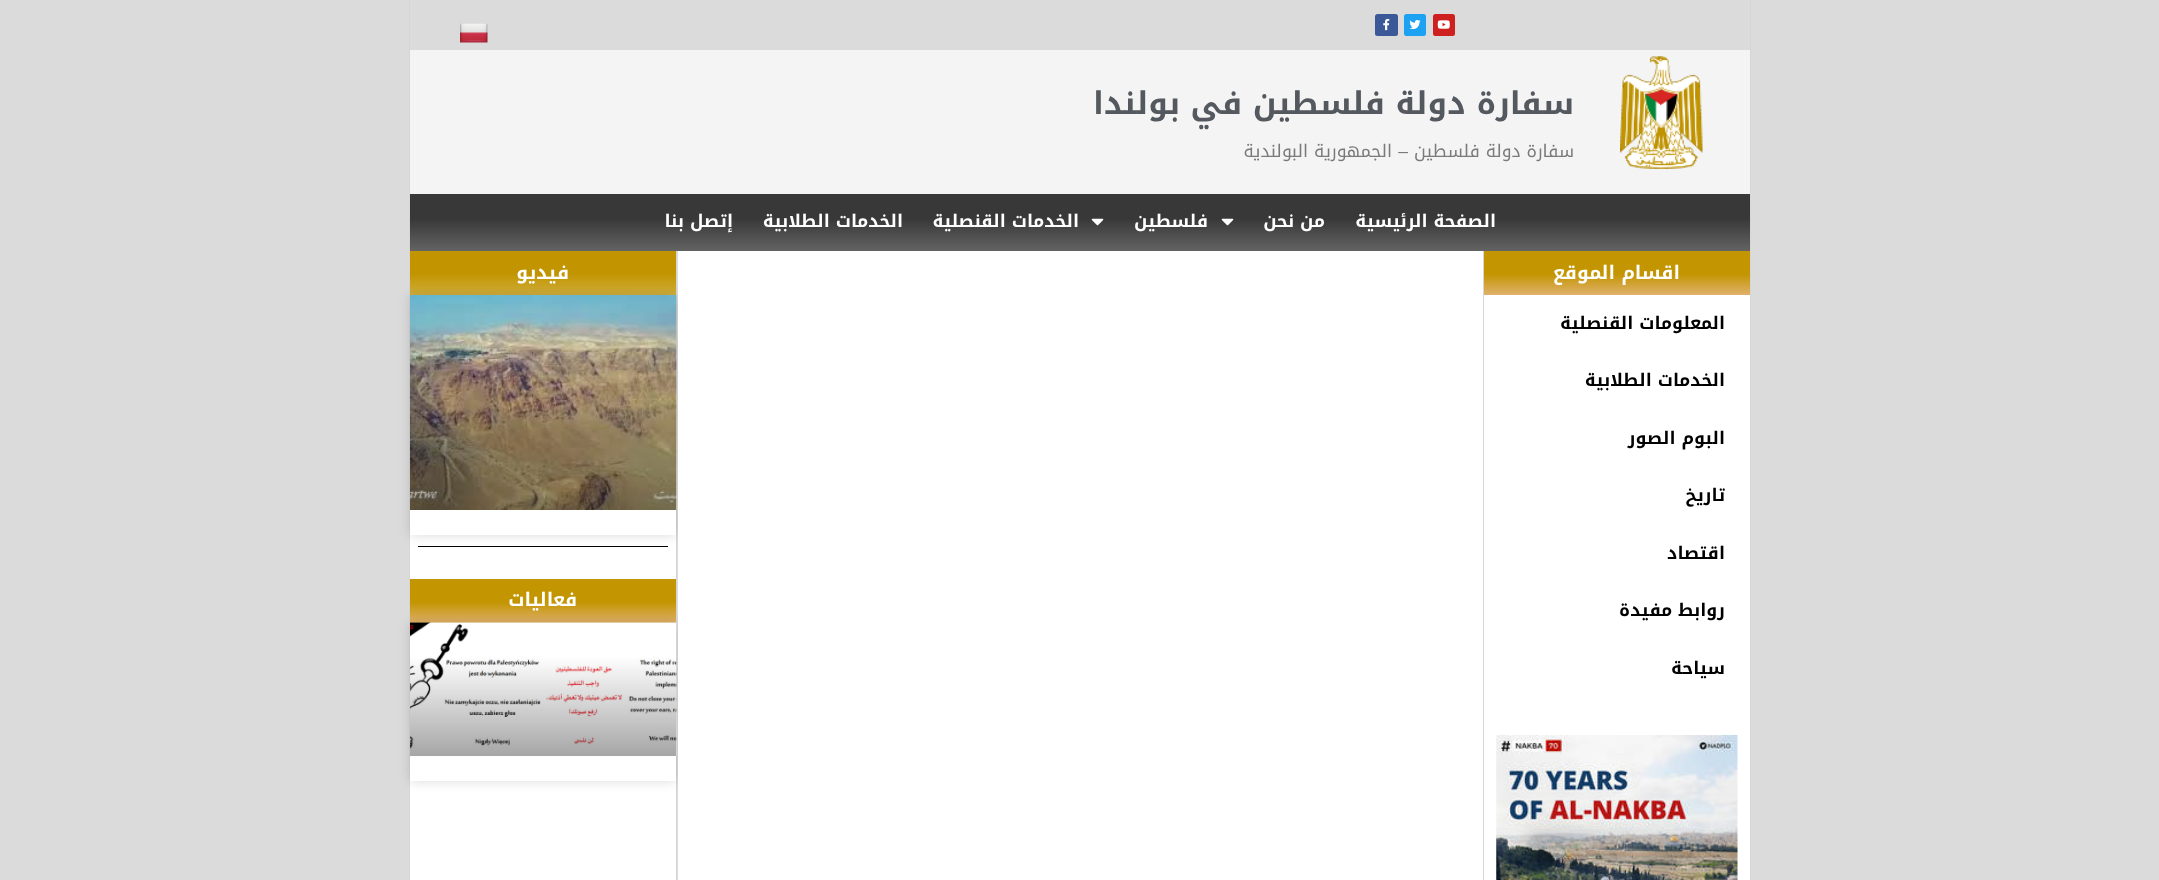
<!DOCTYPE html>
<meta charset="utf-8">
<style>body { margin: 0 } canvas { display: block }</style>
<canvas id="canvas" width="2159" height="880"></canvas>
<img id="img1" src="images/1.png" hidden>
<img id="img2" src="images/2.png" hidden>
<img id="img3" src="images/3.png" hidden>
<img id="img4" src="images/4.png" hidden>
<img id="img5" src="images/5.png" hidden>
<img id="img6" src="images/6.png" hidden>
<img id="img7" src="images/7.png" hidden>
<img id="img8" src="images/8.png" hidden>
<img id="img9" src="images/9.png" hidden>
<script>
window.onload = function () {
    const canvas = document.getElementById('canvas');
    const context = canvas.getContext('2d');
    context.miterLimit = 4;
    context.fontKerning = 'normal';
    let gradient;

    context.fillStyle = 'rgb(219, 219, 219)';
    context.fillRect(0, 0, 2159, 880);
    context.fillStyle = 'rgb(214, 214, 214)';
    context.fillRect(1750, 0, 1, 880);
    context.fillRect(409, 0, 1, 880);
    context.fillStyle = 'rgb(205, 32, 31)';
    context.beginPath();
    context.roundRect(1433, 14, 22, 22, 2.5);
    context.fill();
    context.drawImage(document.getElementById('img1'), 1437, 20, 13, 9);
    context.fillStyle = 'rgb(29, 161, 242)';
    context.beginPath();
    context.roundRect(1404, 14, 22, 22, 2.5);
    context.fill();
    context.drawImage(document.getElementById('img2'), 1409, 20, 12, 10);
    context.fillStyle = 'rgb(59, 89, 152)';
    context.beginPath();
    context.roundRect(1375, 14, 23, 22, 2.5);
    context.fill();
    context.drawImage(document.getElementById('img3'), 1383, 18, 7, 13);
    context.drawImage(document.getElementById('img4'), 460, 23, 28, 20);
    context.fillStyle = 'rgb(244, 244, 244)';
    context.fillRect(410, 50, 1340, 144);
    context.drawImage(document.getElementById('img5'), 1620, 56, 83, 113);
    gradient = context.createLinearGradient(1080, 194, 1080, 251);
    gradient.addColorStop(0.43, 'rgb(56, 56, 56)');
    gradient.addColorStop(1, 'rgb(99, 99, 99)');
    context.fillStyle = gradient;
    context.fillRect(410, 194, 1340, 57);
    context.drawImage(document.getElementById('img6'), 1221, 218, 13, 8);
    context.drawImage(document.getElementById('img6'), 1091, 218, 13, 8);
    context.fillStyle = 'rgb(255, 255, 255)';
    context.fillRect(1484, 295, 266, 585);
    context.fillStyle = 'rgb(214, 214, 214)';
    context.fillRect(1483, 251, 1, 629);
    gradient = context.createLinearGradient(1617, 251, 1617, 295);
    gradient.addColorStop(0.52, 'rgb(195, 149, 0)');
    gradient.addColorStop(1, 'rgb(224, 177, 107)');
    context.fillStyle = gradient;
    context.fillRect(1484, 251, 266, 44);
    context.drawImage(document.getElementById('img7'), 1496, 735, 242, 145);
    context.fillStyle = 'rgb(255, 255, 255)';
    context.fillRect(410, 535, 266, 345);
    context.fillStyle = 'rgb(214, 214, 214)';
    context.fillRect(676, 251, 1, 629);
    gradient = context.createLinearGradient(543, 251, 543, 295);
    gradient.addColorStop(0.52, 'rgb(193, 148, 0)');
    gradient.addColorStop(1, 'rgb(210, 175, 61)');
    context.fillStyle = gradient;
    context.fillRect(410, 251, 266, 44);
    context.fillStyle = 'rgba(0, 0, 0, 0.15)';
    context.filter = 'blur(6px)';
    context.beginPath();
    context.rect(410, 295, 266, 240);
    context.fill();
    context.filter = 'none';
    gradient = context.createLinearGradient(543, 579, 543, 623);
    gradient.addColorStop(0.52, 'rgb(195, 149, 0)');
    gradient.addColorStop(1, 'rgb(224, 177, 107)');
    context.fillStyle = gradient;
    context.fillRect(410, 579, 266, 44);
    context.save();
    context.beginPath();
    context.moveTo(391, 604);
    context.lineTo(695, 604);
    context.lineTo(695, 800);
    context.lineTo(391, 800);
    context.closePath();
    context.moveTo(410, 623);
    context.lineTo(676, 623);
    context.lineTo(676, 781);
    context.lineTo(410, 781);
    context.closePath();
    context.clip('evenodd');
    context.fillStyle = 'rgba(0, 0, 0, 0.15)';
    context.filter = 'blur(6px)';
    context.beginPath();
    context.rect(410, 623, 266, 158);
    context.fill();
    context.filter = 'none';
    context.restore();
    context.fillStyle = 'rgb(255, 255, 255)';
    context.fillRect(678, 251, 805, 629);
    context.fillRect(410, 510, 266, 25);
    context.drawImage(document.getElementById('img8'), 410, 295, 267, 215);
    context.fillStyle = 'rgb(0, 0, 0)';
    context.fillRect(418, 546, 250, 1);
    context.drawImage(document.getElementById('img9'), 410, 622, 267, 134);
    context.direction = 'rtl';
    context.font = 'bold 31.25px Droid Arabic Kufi';
    context.fillStyle = 'rgb(84, 89, 95)';
    context.fillText('سفارة دولة فلسطين في بولندا', 1574, 114);
    context.font = '17.5px Droid Arabic Kufi';
    context.fillStyle = 'rgb(122, 122, 122)';
    context.fillText('سفارة دولة فلسطين', 1574, 157);
    context.font = '17.5px Liberation Sans';
    context.fillText('–', 1408, 157);
    context.font = '17.5px Droid Arabic Kufi';
    context.fillText('الجمهورية البولندية', 1392, 157);
    context.font = 'bold 17.5px Droid Arabic Kufi';
    context.fillStyle = 'rgb(255, 255, 255)';
    context.fillText('الصفحة الرئيسية', 1496, 227);
    context.fillText('من نحن', 1325, 227);
    context.fillText('فلسطين', 1208, 227);
    context.fillText('الخدمات القنصلية', 1079, 227);
    context.fillText('الخدمات الطلابية', 903, 227);
    context.fillText('إتصل بنا', 733, 227);
    context.font = 'bold 18.75px Droid Arabic Kufi';
    context.fillText('اقسام الموقع', 1680, 279);
    context.font = 'bold 17.5px Droid Arabic Kufi';
    context.fillStyle = 'rgb(0, 0, 0)';
    context.fillText('المعلومات القنصلية', 1725, 329);
    context.fillText('الخدمات الطلابية', 1725, 386);
    context.fillText('البوم الصور', 1725, 444);
    context.fillText('تاريخ', 1725, 501);
    context.fillText('اقتصاد', 1725, 559);
    context.fillText('روابط مفيدة', 1725, 616);
    context.fillText('سياحة', 1725, 674);
    context.font = 'bold 18.75px Droid Arabic Kufi';
    context.fillStyle = 'rgb(255, 255, 255)';
    context.fillText('فيديو', 569, 279);
    context.fillText('فعاليات', 577, 606);
};
</script>
